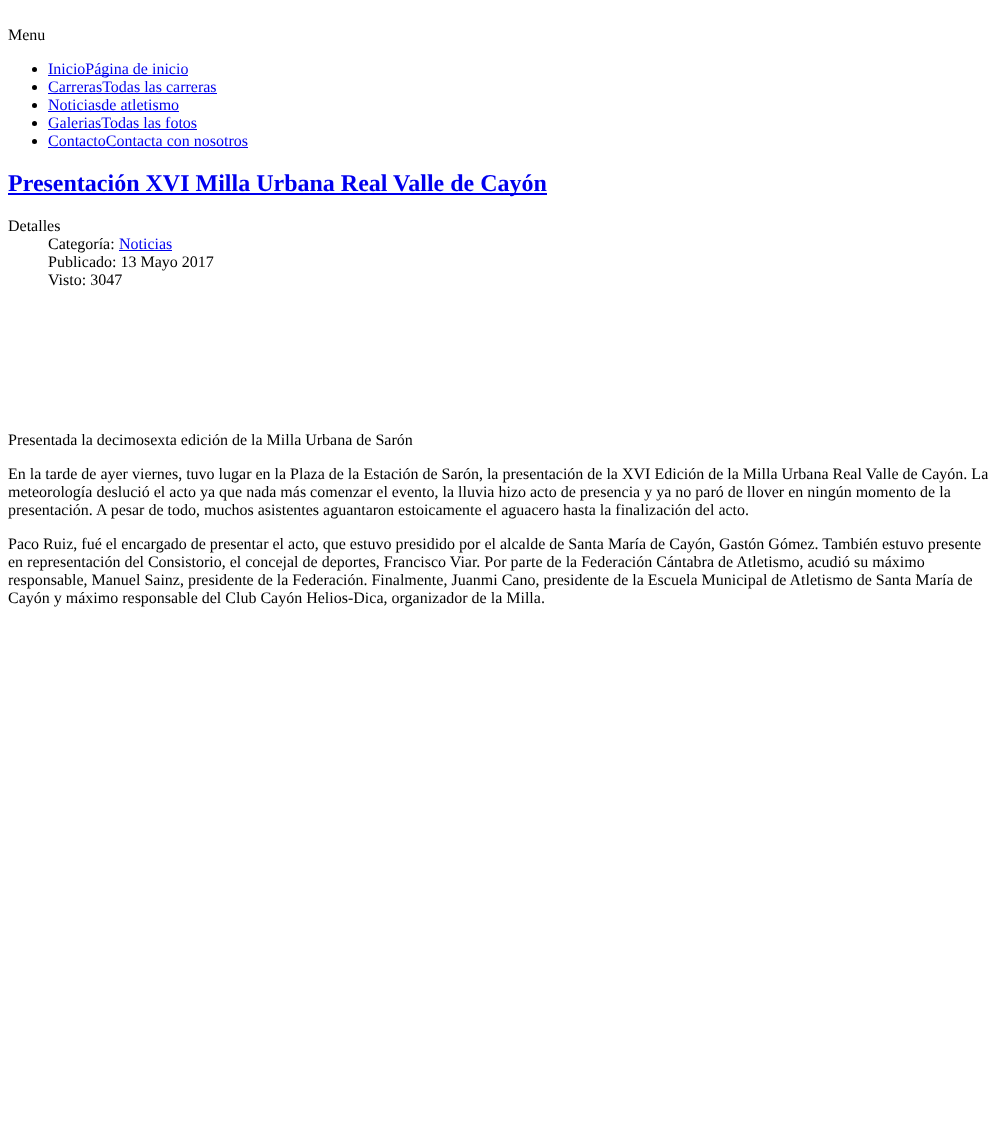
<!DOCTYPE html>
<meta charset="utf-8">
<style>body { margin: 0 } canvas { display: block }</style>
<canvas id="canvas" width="1006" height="1121"></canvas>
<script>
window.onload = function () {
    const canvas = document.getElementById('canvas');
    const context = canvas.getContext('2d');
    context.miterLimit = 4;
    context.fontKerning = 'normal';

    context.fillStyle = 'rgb(255, 255, 255)';
    context.fillRect(0, 0, 1006, 1121);
    context.fillStyle = 'rgb(0, 0, 0)';
    context.beginPath();
    context.arc(34.5, 69.5, 2.5, 0, 2 * Math.PI);
    context.fill();
    context.fillStyle = 'rgb(0, 0, 238)';
    context.fillRect(48, 75, 140, 1);
    context.fillStyle = 'rgb(0, 0, 0)';
    context.beginPath();
    context.arc(34.5, 87.5, 2.5, 0, 2 * Math.PI);
    context.fill();
    context.fillStyle = 'rgb(0, 0, 238)';
    context.fillRect(48, 93, 169, 1);
    context.fillStyle = 'rgb(0, 0, 0)';
    context.beginPath();
    context.arc(34.5, 105.5, 2.5, 0, 2 * Math.PI);
    context.fill();
    context.fillStyle = 'rgb(0, 0, 238)';
    context.fillRect(48, 111, 131, 1);
    context.fillStyle = 'rgb(0, 0, 0)';
    context.beginPath();
    context.arc(34.5, 123.5, 2.5, 0, 2 * Math.PI);
    context.fill();
    context.fillStyle = 'rgb(0, 0, 238)';
    context.fillRect(48, 129, 149, 1);
    context.fillStyle = 'rgb(0, 0, 0)';
    context.beginPath();
    context.arc(34.5, 141.5, 2.5, 0, 2 * Math.PI);
    context.fill();
    context.fillStyle = 'rgb(0, 0, 238)';
    context.fillRect(48, 147, 200, 1);
    context.fillRect(8, 193, 539, 2);
    context.fillRect(119, 250, 53, 1);
    context.font = '16px Liberation Serif';
    context.fillStyle = 'rgb(0, 0, 0)';
    context.fillText('Menu', 8, 40);
    context.fillStyle = 'rgb(0, 0, 238)';
    context.fillText('InicioPágina de inicio', 48, 74);
    context.fillText('CarrerasTodas las carreras', 48, 92);
    context.fillText('Noticiasde atletismo', 48, 110);
    context.fillText('GaleriasTodas las fotos', 48, 128);
    context.fillText('ContactoContacta con nosotros', 48, 146);
    context.font = 'bold 24px Liberation Serif';
    context.fillText('Presentación XVI Milla Urbana Real Valle de Cayón', 8, 191);
    context.font = '16px Liberation Serif';
    context.fillStyle = 'rgb(0, 0, 0)';
    context.fillText('Detalles', 8, 231);
    context.fillText('Categoría:', 48, 249);
    context.fillStyle = 'rgb(0, 0, 238)';
    context.fillText('Noticias', 119, 249);
    context.fillStyle = 'rgb(0, 0, 0)';
    context.fillText('Publicado: 13 Mayo 2017', 48, 267);
    context.fillText('Visto: 3047', 48, 285);
    context.fillText('Presentada la decimosexta edición de la Milla Urbana de Sarón', 8, 445);
    context.fillText('En la tarde de ayer viernes, tuvo lugar en la Plaza de la Estación de Sarón, la presentación de la XVI Edición de la Milla Urbana Real Valle de Cayón. La', 8, 479);
    context.fillText('meteorología deslució el acto ya que nada más comenzar el evento, la lluvia hizo acto de presencia y ya no paró de llover en ningún momento de la', 8, 497);
    context.fillText('presentación. A pesar de todo, muchos asistentes aguantaron estoicamente el aguacero hasta la finalización del acto.', 8, 515);
    context.fillText('Paco Ruiz, fué el encargado de presentar el acto, que estuvo presidido por el alcalde de Santa María de Cayón, Gastón Gómez. También estuvo presente', 8, 549);
    context.fillText('en representación del Consistorio, el concejal de deportes, Francisco Viar. Por parte de la Federación Cántabra de Atletismo, acudió su máximo', 8, 567);
    context.fillText('responsable, Manuel Sainz, presidente de la Federación. Finalmente, Juanmi Cano, presidente de la Escuela Municipal de Atletismo de Santa María de', 8, 585);
    context.fillText('Cayón y máximo responsable del Club Cayón Helios-Dica, organizador de la Milla.', 8, 603);
};
</script>
